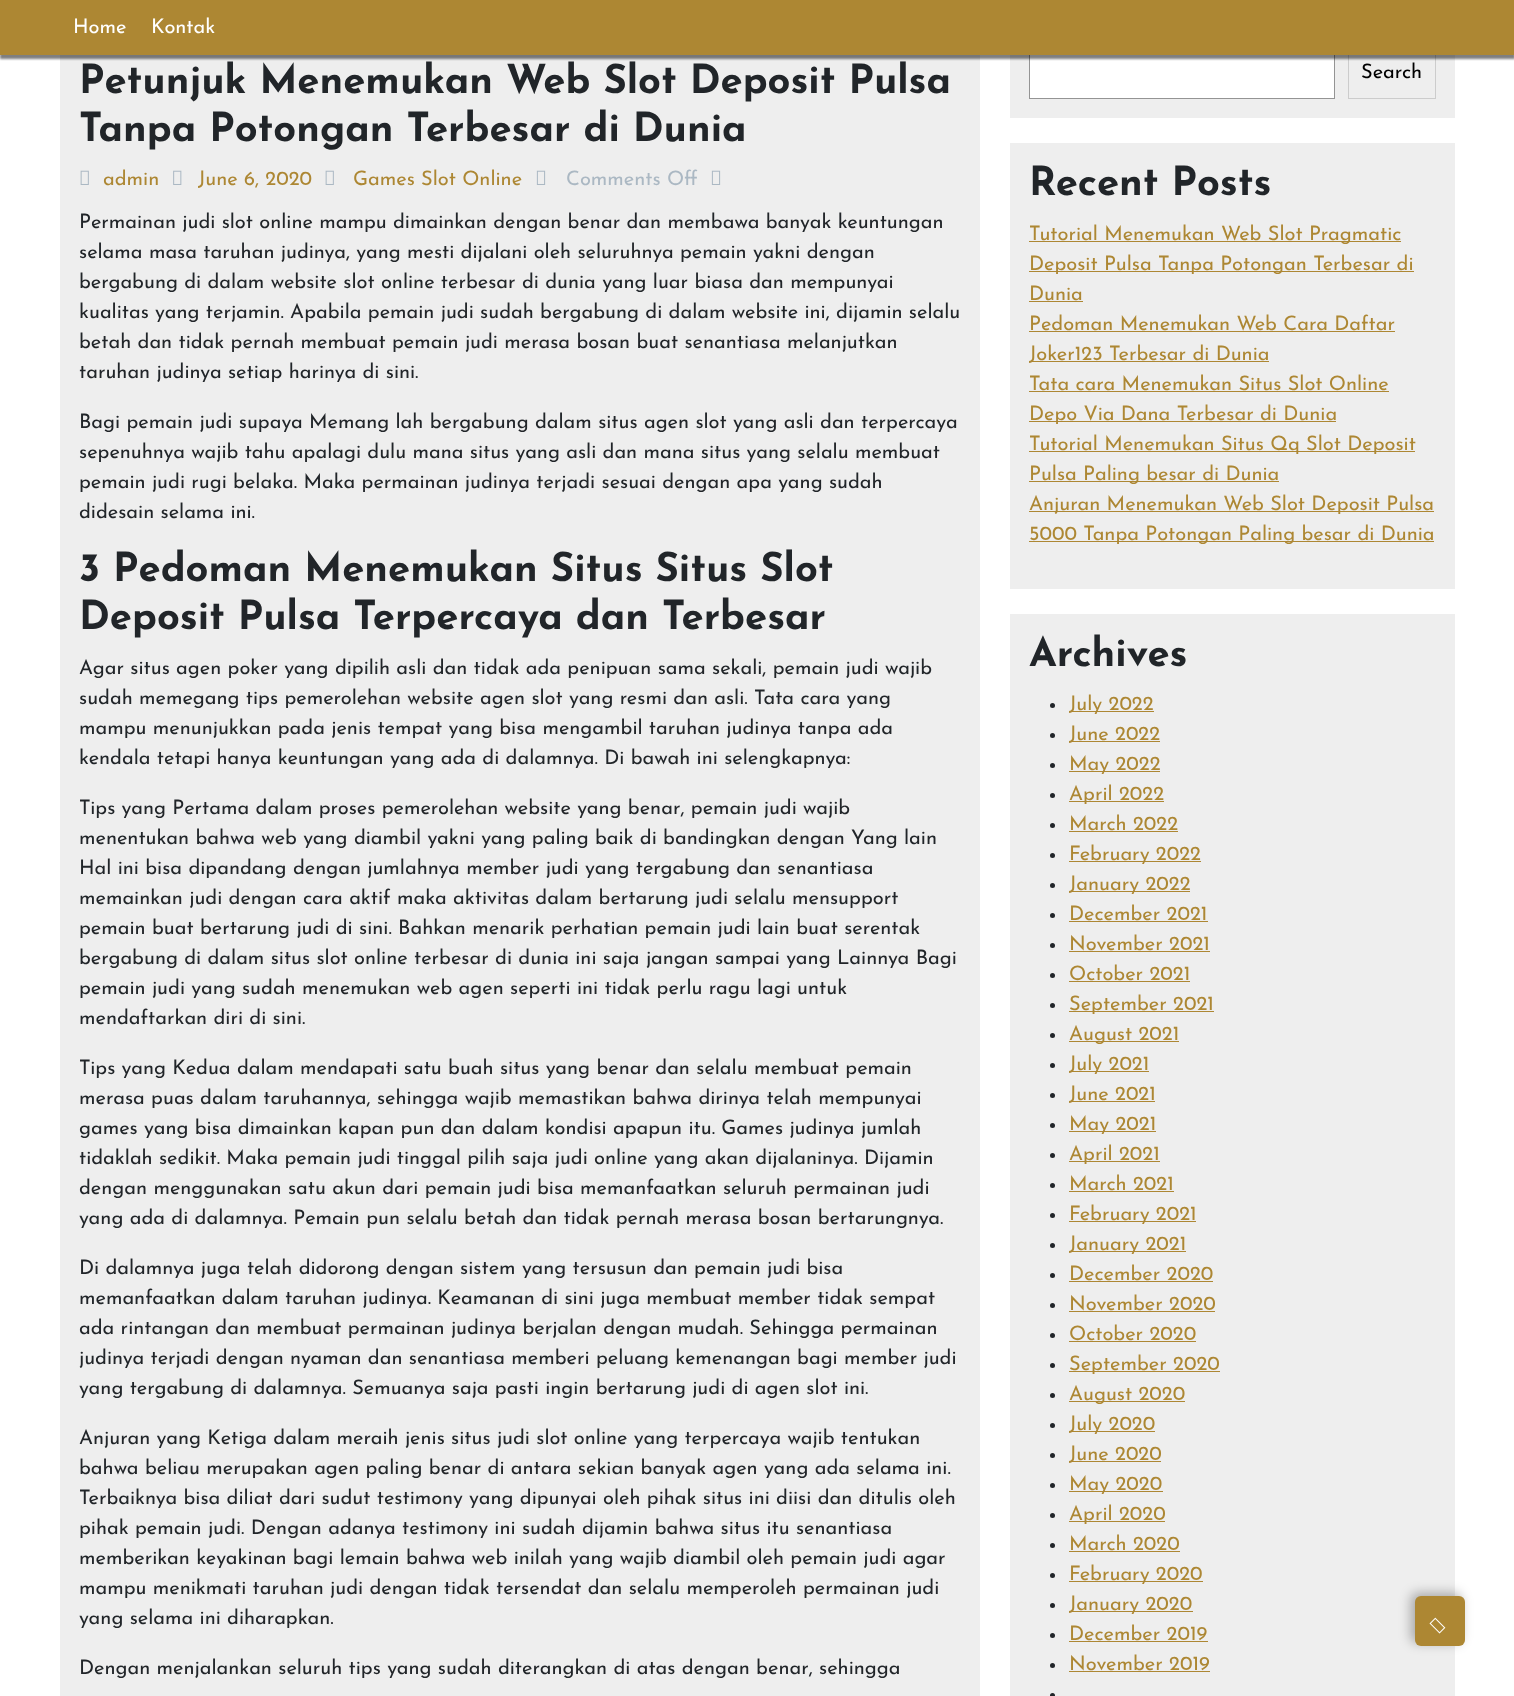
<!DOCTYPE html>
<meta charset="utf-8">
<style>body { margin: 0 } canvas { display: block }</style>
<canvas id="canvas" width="1514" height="1696"></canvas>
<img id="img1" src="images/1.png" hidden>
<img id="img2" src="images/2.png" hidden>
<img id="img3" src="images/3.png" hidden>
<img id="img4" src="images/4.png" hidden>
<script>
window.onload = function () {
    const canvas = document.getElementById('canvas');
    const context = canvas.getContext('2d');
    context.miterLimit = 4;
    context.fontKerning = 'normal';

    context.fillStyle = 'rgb(255, 255, 255)';
    context.fillRect(0, 0, 1514, 1696);
    context.fillStyle = 'rgb(238, 238, 238)';
    context.fillRect(60, 55, 920, 1641);
    context.fillRect(1010, 55, 445, 63);
    context.fillStyle = 'rgb(255, 255, 255)';
    context.fillRect(1030, 55, 304, 43);
    context.strokeStyle = 'rgb(148, 148, 148)';
    context.strokeRect(1029.5, 46.5, 305, 52);
    context.strokeStyle = 'rgb(204, 204, 204)';
    context.strokeRect(1348.5, 46.5, 87, 52);
    context.fillStyle = 'rgba(0, 0, 0, 0.5)';
    context.filter = 'blur(1px)';
    context.beginPath();
    context.rect(0, 4, 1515, 55);
    context.fill();
    context.filter = 'none';
    context.fillStyle = 'rgb(173, 135, 51)';
    context.fillRect(0, 0, 1514, 55);
    context.drawImage(document.getElementById('img1'), 80, 170, 9, 15);
    context.drawImage(document.getElementById('img2'), 173, 170, 9, 15);
    context.drawImage(document.getElementById('img1'), 325, 170, 9, 15);
    context.drawImage(document.getElementById('img3'), 536, 170, 10, 15);
    context.drawImage(document.getElementById('img3'), 711, 170, 10, 15);
    context.fillStyle = 'rgb(238, 238, 238)';
    context.fillRect(1010, 143, 445, 446);
    context.fillStyle = 'rgb(173, 135, 51)';
    context.fillRect(1029, 241, 372, 1);
    context.fillRect(1029, 271, 385, 1);
    context.fillRect(1029, 301, 54, 1);
    context.fillRect(1029, 331, 366, 1);
    context.fillRect(1029, 361, 240, 1);
    context.fillRect(1029, 391, 360, 1);
    context.fillRect(1029, 421, 307, 1);
    context.fillRect(1029, 451, 386, 1);
    context.fillRect(1029, 481, 250, 1);
    context.fillRect(1029, 511, 405, 1);
    context.fillRect(1029, 541, 405, 1);
    context.fillStyle = 'rgb(238, 238, 238)';
    context.fillRect(1010, 614, 445, 1082);
    context.fillStyle = 'rgb(33, 37, 41)';
    context.beginPath();
    context.arc(1052.5, 705.5, 2.5, 0, 2 * Math.PI);
    context.fill();
    context.fillStyle = 'rgb(173, 135, 51)';
    context.fillRect(1069, 711, 85, 1);
    context.fillStyle = 'rgb(33, 37, 41)';
    context.beginPath();
    context.arc(1052.5, 735.5, 2.5, 0, 2 * Math.PI);
    context.fill();
    context.fillStyle = 'rgb(173, 135, 51)';
    context.fillRect(1069, 741, 91, 1);
    context.fillStyle = 'rgb(33, 37, 41)';
    context.beginPath();
    context.arc(1052.5, 765.5, 2.5, 0, 2 * Math.PI);
    context.fill();
    context.fillStyle = 'rgb(173, 135, 51)';
    context.fillRect(1069, 771, 91, 1);
    context.fillStyle = 'rgb(33, 37, 41)';
    context.beginPath();
    context.arc(1052.5, 795.5, 2.5, 0, 2 * Math.PI);
    context.fill();
    context.fillStyle = 'rgb(173, 135, 51)';
    context.fillRect(1069, 801, 95, 1);
    context.fillStyle = 'rgb(33, 37, 41)';
    context.beginPath();
    context.arc(1052.5, 825.5, 2.5, 0, 2 * Math.PI);
    context.fill();
    context.fillStyle = 'rgb(173, 135, 51)';
    context.fillRect(1069, 831, 109, 1);
    context.fillStyle = 'rgb(33, 37, 41)';
    context.beginPath();
    context.arc(1052.5, 855.5, 2.5, 0, 2 * Math.PI);
    context.fill();
    context.fillStyle = 'rgb(173, 135, 51)';
    context.fillRect(1069, 861, 132, 1);
    context.fillStyle = 'rgb(33, 37, 41)';
    context.beginPath();
    context.arc(1052.5, 885.5, 2.5, 0, 2 * Math.PI);
    context.fill();
    context.fillStyle = 'rgb(173, 135, 51)';
    context.fillRect(1069, 891, 121, 1);
    context.fillStyle = 'rgb(33, 37, 41)';
    context.beginPath();
    context.arc(1052.5, 915.5, 2.5, 0, 2 * Math.PI);
    context.fill();
    context.fillStyle = 'rgb(173, 135, 51)';
    context.fillRect(1069, 921, 139, 1);
    context.fillStyle = 'rgb(33, 37, 41)';
    context.beginPath();
    context.arc(1052.5, 945.5, 2.5, 0, 2 * Math.PI);
    context.fill();
    context.fillStyle = 'rgb(173, 135, 51)';
    context.fillRect(1069, 951, 141, 1);
    context.fillStyle = 'rgb(33, 37, 41)';
    context.beginPath();
    context.arc(1052.5, 975.5, 2.5, 0, 2 * Math.PI);
    context.fill();
    context.fillStyle = 'rgb(173, 135, 51)';
    context.fillRect(1069, 981, 121, 1);
    context.fillStyle = 'rgb(33, 37, 41)';
    context.beginPath();
    context.arc(1052.5, 1005.5, 2.5, 0, 2 * Math.PI);
    context.fill();
    context.fillStyle = 'rgb(173, 135, 51)';
    context.fillRect(1069, 1011, 145, 1);
    context.fillStyle = 'rgb(33, 37, 41)';
    context.beginPath();
    context.arc(1052.5, 1035.5, 2.5, 0, 2 * Math.PI);
    context.fill();
    context.fillStyle = 'rgb(173, 135, 51)';
    context.fillRect(1069, 1041, 110, 1);
    context.fillStyle = 'rgb(33, 37, 41)';
    context.beginPath();
    context.arc(1052.5, 1065.5, 2.5, 0, 2 * Math.PI);
    context.fill();
    context.fillStyle = 'rgb(173, 135, 51)';
    context.fillRect(1069, 1071, 80, 1);
    context.fillStyle = 'rgb(33, 37, 41)';
    context.beginPath();
    context.arc(1052.5, 1095.5, 2.5, 0, 2 * Math.PI);
    context.fill();
    context.fillStyle = 'rgb(173, 135, 51)';
    context.fillRect(1069, 1101, 86, 1);
    context.fillStyle = 'rgb(33, 37, 41)';
    context.beginPath();
    context.arc(1052.5, 1125.5, 2.5, 0, 2 * Math.PI);
    context.fill();
    context.fillStyle = 'rgb(173, 135, 51)';
    context.fillRect(1069, 1131, 87, 1);
    context.fillStyle = 'rgb(33, 37, 41)';
    context.beginPath();
    context.arc(1052.5, 1155.5, 2.5, 0, 2 * Math.PI);
    context.fill();
    context.fillStyle = 'rgb(173, 135, 51)';
    context.fillRect(1069, 1161, 91, 1);
    context.fillStyle = 'rgb(33, 37, 41)';
    context.beginPath();
    context.arc(1052.5, 1185.5, 2.5, 0, 2 * Math.PI);
    context.fill();
    context.fillStyle = 'rgb(173, 135, 51)';
    context.fillRect(1069, 1191, 105, 1);
    context.fillStyle = 'rgb(33, 37, 41)';
    context.beginPath();
    context.arc(1052.5, 1215.5, 2.5, 0, 2 * Math.PI);
    context.fill();
    context.fillStyle = 'rgb(173, 135, 51)';
    context.fillRect(1069, 1221, 127, 1);
    context.fillStyle = 'rgb(33, 37, 41)';
    context.beginPath();
    context.arc(1052.5, 1245.5, 2.5, 0, 2 * Math.PI);
    context.fill();
    context.fillStyle = 'rgb(173, 135, 51)';
    context.fillRect(1069, 1251, 117, 1);
    context.fillStyle = 'rgb(33, 37, 41)';
    context.beginPath();
    context.arc(1052.5, 1275.5, 2.5, 0, 2 * Math.PI);
    context.fill();
    context.fillStyle = 'rgb(173, 135, 51)';
    context.fillRect(1069, 1281, 144, 1);
    context.fillStyle = 'rgb(33, 37, 41)';
    context.beginPath();
    context.arc(1052.5, 1305.5, 2.5, 0, 2 * Math.PI);
    context.fill();
    context.fillStyle = 'rgb(173, 135, 51)';
    context.fillRect(1069, 1311, 146, 1);
    context.fillStyle = 'rgb(33, 37, 41)';
    context.beginPath();
    context.arc(1052.5, 1335.5, 2.5, 0, 2 * Math.PI);
    context.fill();
    context.fillStyle = 'rgb(173, 135, 51)';
    context.fillRect(1069, 1341, 127, 1);
    context.fillStyle = 'rgb(33, 37, 41)';
    context.beginPath();
    context.arc(1052.5, 1365.5, 2.5, 0, 2 * Math.PI);
    context.fill();
    context.fillStyle = 'rgb(173, 135, 51)';
    context.fillRect(1069, 1371, 151, 1);
    context.fillStyle = 'rgb(33, 37, 41)';
    context.beginPath();
    context.arc(1052.5, 1395.5, 2.5, 0, 2 * Math.PI);
    context.fill();
    context.fillStyle = 'rgb(173, 135, 51)';
    context.fillRect(1069, 1401, 116, 1);
    context.fillStyle = 'rgb(33, 37, 41)';
    context.beginPath();
    context.arc(1052.5, 1425.5, 2.5, 0, 2 * Math.PI);
    context.fill();
    context.fillStyle = 'rgb(173, 135, 51)';
    context.fillRect(1069, 1431, 86, 1);
    context.fillStyle = 'rgb(33, 37, 41)';
    context.beginPath();
    context.arc(1052.5, 1455.5, 2.5, 0, 2 * Math.PI);
    context.fill();
    context.fillStyle = 'rgb(173, 135, 51)';
    context.fillRect(1069, 1461, 92, 1);
    context.fillStyle = 'rgb(33, 37, 41)';
    context.beginPath();
    context.arc(1052.5, 1485.5, 2.5, 0, 2 * Math.PI);
    context.fill();
    context.fillStyle = 'rgb(173, 135, 51)';
    context.fillRect(1069, 1491, 94, 1);
    context.fillStyle = 'rgb(33, 37, 41)';
    context.beginPath();
    context.arc(1052.5, 1515.5, 2.5, 0, 2 * Math.PI);
    context.fill();
    context.fillStyle = 'rgb(173, 135, 51)';
    context.fillRect(1069, 1521, 96, 1);
    context.fillStyle = 'rgb(33, 37, 41)';
    context.beginPath();
    context.arc(1052.5, 1545.5, 2.5, 0, 2 * Math.PI);
    context.fill();
    context.fillStyle = 'rgb(173, 135, 51)';
    context.fillRect(1069, 1551, 111, 1);
    context.fillStyle = 'rgb(33, 37, 41)';
    context.beginPath();
    context.arc(1052.5, 1575.5, 2.5, 0, 2 * Math.PI);
    context.fill();
    context.fillStyle = 'rgb(173, 135, 51)';
    context.fillRect(1069, 1581, 134, 1);
    context.fillStyle = 'rgb(33, 37, 41)';
    context.beginPath();
    context.arc(1052.5, 1605.5, 2.5, 0, 2 * Math.PI);
    context.fill();
    context.fillStyle = 'rgb(173, 135, 51)';
    context.fillRect(1069, 1611, 124, 1);
    context.fillStyle = 'rgb(33, 37, 41)';
    context.beginPath();
    context.arc(1052.5, 1635.5, 2.5, 0, 2 * Math.PI);
    context.fill();
    context.fillStyle = 'rgb(173, 135, 51)';
    context.fillRect(1069, 1641, 139, 1);
    context.fillStyle = 'rgb(33, 37, 41)';
    context.beginPath();
    context.arc(1052.5, 1665.5, 2.5, 0, 2 * Math.PI);
    context.fill();
    context.fillStyle = 'rgb(173, 135, 51)';
    context.fillRect(1069, 1671, 141, 1);
    context.fillStyle = 'rgb(33, 37, 41)';
    context.beginPath();
    context.arc(1052.5, 1695.5, 2.5, 0, 2 * Math.PI);
    context.fill();
    context.fillStyle = 'rgba(0, 0, 0, 0.3)';
    context.filter = 'blur(6px)';
    context.beginPath();
    context.roundRect(1411, 1593, 50, 50, 6);
    context.fill();
    context.filter = 'none';
    context.fillStyle = 'rgb(173, 135, 51)';
    context.beginPath();
    context.roundRect(1415, 1596, 50, 50, 6);
    context.fill();
    context.drawImage(document.getElementById('img4'), 1429, 1617, 17, 17);
    context.font = '20px Josefin Sans';
    context.fillStyle = 'rgb(255, 255, 255)';
    context.fillText('Home', 73, 33);
    context.fillText('Kontak', 151, 33);
    context.font = 'bold 40px Josefin Sans';
    context.fillStyle = 'rgb(33, 37, 41)';
    context.fillText('Petunjuk Menemukan Web Slot Deposit Pulsa', 79, 93);
    context.fillText('Tanpa Potongan Terbesar di Dunia', 79, 141);
    context.font = '20px Josefin Sans';
    context.fillStyle = 'rgb(173, 135, 51)';
    context.fillText('admin', 103, 185);
    context.fillText('June 6, 2020', 198, 185);
    context.fillText('Games Slot Online', 353, 185);
    context.fillStyle = 'rgb(171, 184, 195)';
    context.fillText('Comments Off', 566, 185);
    context.fillStyle = 'rgb(33, 37, 41)';
    context.fillText('Permainan judi slot online mampu dimainkan dengan benar dan membawa banyak keuntungan', 79, 228);
    context.fillText('selama masa taruhan judinya, yang mesti dijalani oleh seluruhnya pemain yakni dengan', 79, 258);
    context.fillText('bergabung di dalam website slot online terbesar di dunia yang luar biasa dan mempunyai', 79, 288);
    context.fillText('kualitas yang terjamin. Apabila pemain judi sudah bergabung di dalam website ini, dijamin selalu', 79, 318);
    context.fillText('betah dan tidak pernah membuat pemain judi merasa bosan buat senantiasa melanjutkan', 79, 348);
    context.fillText('taruhan judinya setiap harinya di sini.', 79, 378);
    context.fillText('Bagi pemain judi supaya Memang lah bergabung dalam situs agen slot yang asli dan terpercaya', 79, 428);
    context.fillText('sepenuhnya wajib tahu apalagi dulu mana situs yang asli dan mana situs yang selalu membuat', 79, 458);
    context.fillText('pemain judi rugi belaka. Maka permainan judinya terjadi sesuai dengan apa yang sudah', 79, 488);
    context.fillText('didesain selama ini.', 79, 518);
    context.font = 'bold 40px Josefin Sans';
    context.fillText('3 Pedoman Menemukan Situs Situs Slot', 79, 581);
    context.fillText('Deposit Pulsa Terpercaya dan Terbesar', 79, 629);
    context.font = '20px Josefin Sans';
    context.fillText('Agar situs agen poker yang dipilih asli dan tidak ada penipuan sama sekali, pemain judi wajib', 79, 674);
    context.fillText('sudah memegang tips pemerolehan website agen slot yang resmi dan asli. Tata cara yang', 79, 704);
    context.fillText('mampu menunjukkan pada jenis tempat yang bisa mengambil taruhan judinya tanpa ada', 79, 734);
    context.fillText('kendala tetapi hanya keuntungan yang ada di dalamnya. Di bawah ini selengkapnya:', 79, 764);
    context.fillText('Tips yang Pertama dalam proses pemerolehan website yang benar, pemain judi wajib', 79, 814);
    context.fillText('menentukan bahwa web yang diambil yakni yang paling baik di bandingkan dengan Yang lain', 79, 844);
    context.fillText('Hal ini bisa dipandang dengan jumlahnya member judi yang tergabung dan senantiasa', 79, 874);
    context.fillText('memainkan judi dengan cara aktif maka aktivitas dalam bertarung judi selalu mensupport', 79, 904);
    context.fillText('pemain buat bertarung judi di sini. Bahkan menarik perhatian pemain judi lain buat serentak', 79, 934);
    context.fillText('bergabung di dalam situs slot online terbesar di dunia ini saja jangan sampai yang Lainnya Bagi', 79, 964);
    context.fillText('pemain judi yang sudah menemukan web agen seperti ini tidak perlu ragu lagi untuk', 79, 994);
    context.fillText('mendaftarkan diri di sini.', 79, 1024);
    context.fillText('Tips yang Kedua dalam mendapati satu buah situs yang benar dan selalu membuat pemain', 79, 1074);
    context.fillText('merasa puas dalam taruhannya, sehingga wajib memastikan bahwa dirinya telah mempunyai', 79, 1104);
    context.fillText('games yang bisa dimainkan kapan pun dan dalam kondisi apapun itu. Games judinya jumlah', 79, 1134);
    context.fillText('tidaklah sedikit. Maka pemain judi tinggal pilih saja judi online yang akan dijalaninya. Dijamin', 79, 1164);
    context.fillText('dengan menggunakan satu akun dari pemain judi bisa memanfaatkan seluruh permainan judi', 79, 1194);
    context.fillText('yang ada di dalamnya. Pemain pun selalu betah dan tidak pernah merasa bosan bertarungnya.', 79, 1224);
    context.fillText('Di dalamnya juga telah didorong dengan sistem yang tersusun dan pemain judi bisa', 79, 1274);
    context.fillText('memanfaatkan dalam taruhan judinya. Keamanan di sini juga membuat member tidak sempat', 79, 1304);
    context.fillText('ada rintangan dan membuat permainan judinya berjalan dengan mudah. Sehingga permainan', 79, 1334);
    context.fillText('judinya terjadi dengan nyaman dan senantiasa memberi peluang kemenangan bagi member judi', 79, 1364);
    context.fillText('yang tergabung di dalamnya. Semuanya saja pasti ingin bertarung judi di agen slot ini.', 79, 1394);
    context.fillText('Anjuran yang Ketiga dalam meraih jenis situs judi slot online yang terpercaya wajib tentukan', 79, 1444);
    context.fillText('bahwa beliau merupakan agen paling benar di antara sekian banyak agen yang ada selama ini.', 79, 1474);
    context.fillText('Terbaiknya bisa diliat dari sudut testimony yang dipunyai oleh pihak situs ini diisi dan ditulis oleh', 79, 1504);
    context.fillText('pihak pemain judi. Dengan adanya testimony ini sudah dijamin bahwa situs itu senantiasa', 79, 1534);
    context.fillText('memberikan keyakinan bagi lemain bahwa web inilah yang wajib diambil oleh pemain judi agar', 79, 1564);
    context.fillText('mampu menikmati taruhan judi dengan tidak tersendat dan selalu memperoleh permainan judi', 79, 1594);
    context.fillText('yang selama ini diharapkan.', 79, 1624);
    context.fillText('Dengan menjalankan seluruh tips yang sudah diterangkan di atas dengan benar, sehingga', 79, 1674);
    context.fillStyle = 'rgb(0, 0, 0)';
    context.fillText('Search', 1361, 78);
    context.font = 'bold 40px Josefin Sans';
    context.fillStyle = 'rgb(33, 37, 41)';
    context.fillText('Recent Posts', 1029, 195);
    context.font = '20px Josefin Sans';
    context.fillStyle = 'rgb(173, 135, 51)';
    context.fillText('Tutorial Menemukan Web Slot Pragmatic', 1029, 240);
    context.fillText('Deposit Pulsa Tanpa Potongan Terbesar di', 1029, 270);
    context.fillText('Dunia', 1029, 300);
    context.fillText('Pedoman Menemukan Web Cara Daftar', 1029, 330);
    context.fillText('Joker123 Terbesar di Dunia', 1029, 360);
    context.fillText('Tata cara Menemukan Situs Slot Online', 1029, 390);
    context.fillText('Depo Via Dana Terbesar di Dunia', 1029, 420);
    context.fillText('Tutorial Menemukan Situs Qq Slot Deposit', 1029, 450);
    context.fillText('Pulsa Paling besar di Dunia', 1029, 480);
    context.fillText('Anjuran Menemukan Web Slot Deposit Pulsa', 1029, 510);
    context.fillText('5000 Tanpa Potongan Paling besar di Dunia', 1029, 540);
    context.font = 'bold 40px Josefin Sans';
    context.fillStyle = 'rgb(33, 37, 41)';
    context.fillText('Archives', 1029, 666);
    context.font = '20px Josefin Sans';
    context.fillStyle = 'rgb(173, 135, 51)';
    context.fillText('July 2022', 1069, 710);
    context.fillText('June 2022', 1069, 740);
    context.fillText('May 2022', 1069, 770);
    context.fillText('April 2022', 1069, 800);
    context.fillText('March 2022', 1069, 830);
    context.fillText('February 2022', 1069, 860);
    context.fillText('January 2022', 1069, 890);
    context.fillText('December 2021', 1069, 920);
    context.fillText('November 2021', 1069, 950);
    context.fillText('October 2021', 1069, 980);
    context.fillText('September 2021', 1069, 1010);
    context.fillText('August 2021', 1069, 1040);
    context.fillText('July 2021', 1069, 1070);
    context.fillText('June 2021', 1069, 1100);
    context.fillText('May 2021', 1069, 1130);
    context.fillText('April 2021', 1069, 1160);
    context.fillText('March 2021', 1069, 1190);
    context.fillText('February 2021', 1069, 1220);
    context.fillText('January 2021', 1069, 1250);
    context.fillText('December 2020', 1069, 1280);
    context.fillText('November 2020', 1069, 1310);
    context.fillText('October 2020', 1069, 1340);
    context.fillText('September 2020', 1069, 1370);
    context.fillText('August 2020', 1069, 1400);
    context.fillText('July 2020', 1069, 1430);
    context.fillText('June 2020', 1069, 1460);
    context.fillText('May 2020', 1069, 1490);
    context.fillText('April 2020', 1069, 1520);
    context.fillText('March 2020', 1069, 1550);
    context.fillText('February 2020', 1069, 1580);
    context.fillText('January 2020', 1069, 1610);
    context.fillText('December 2019', 1069, 1640);
    context.fillText('November 2019', 1069, 1670);
};
</script>
